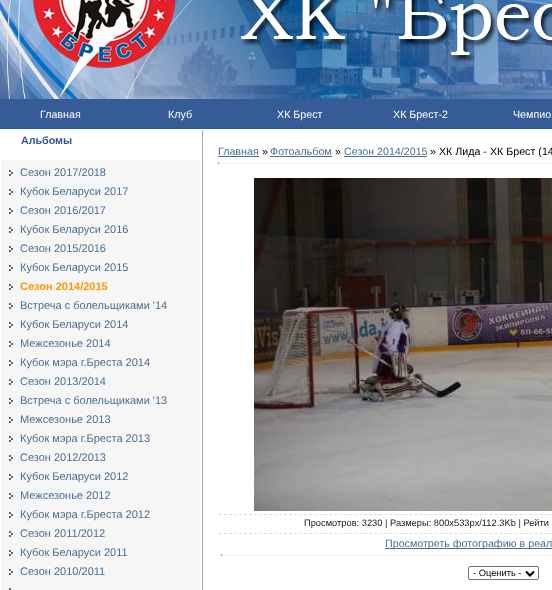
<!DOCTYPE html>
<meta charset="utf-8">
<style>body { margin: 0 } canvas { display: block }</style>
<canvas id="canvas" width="552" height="590"></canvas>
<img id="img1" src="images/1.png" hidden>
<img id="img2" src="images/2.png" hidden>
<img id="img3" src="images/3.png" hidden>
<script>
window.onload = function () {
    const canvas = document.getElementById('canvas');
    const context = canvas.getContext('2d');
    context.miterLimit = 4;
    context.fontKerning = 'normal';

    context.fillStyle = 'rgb(255, 255, 255)';
    context.fillRect(0, 0, 552, 590);
    context.drawImage(document.getElementById('img1'), 0, 0, 552, 99);
    context.fillStyle = 'rgb(53, 92, 150)';
    context.fillRect(0, 99, 552, 30);
    context.fillStyle = 'rgb(246, 246, 246)';
    context.fillRect(1, 160, 200, 430);
    context.drawImage(document.getElementById('img2'), 9, 170, 4, 6);
    context.drawImage(document.getElementById('img2'), 9, 189, 4, 6);
    context.drawImage(document.getElementById('img2'), 9, 208, 4, 6);
    context.drawImage(document.getElementById('img2'), 9, 227, 4, 6);
    context.drawImage(document.getElementById('img2'), 9, 246, 4, 6);
    context.drawImage(document.getElementById('img2'), 9, 265, 4, 6);
    context.drawImage(document.getElementById('img2'), 9, 284, 4, 6);
    context.drawImage(document.getElementById('img2'), 9, 303, 4, 6);
    context.drawImage(document.getElementById('img2'), 9, 322, 4, 6);
    context.drawImage(document.getElementById('img2'), 9, 341, 4, 6);
    context.drawImage(document.getElementById('img2'), 9, 360, 4, 6);
    context.drawImage(document.getElementById('img2'), 9, 379, 4, 6);
    context.drawImage(document.getElementById('img2'), 9, 398, 4, 6);
    context.drawImage(document.getElementById('img2'), 9, 417, 4, 6);
    context.drawImage(document.getElementById('img2'), 9, 436, 4, 6);
    context.drawImage(document.getElementById('img2'), 9, 455, 4, 6);
    context.drawImage(document.getElementById('img2'), 9, 474, 4, 6);
    context.drawImage(document.getElementById('img2'), 9, 493, 4, 6);
    context.drawImage(document.getElementById('img2'), 9, 512, 4, 6);
    context.drawImage(document.getElementById('img2'), 9, 531, 4, 6);
    context.drawImage(document.getElementById('img2'), 9, 550, 4, 6);
    context.drawImage(document.getElementById('img2'), 9, 569, 4, 6);
    context.fillStyle = 'rgb(77, 109, 145)';
    context.fillRect(9, 588, 2, 2);
    context.fillStyle = 'rgb(169, 169, 169)';
    context.fillRect(202, 130, 1, 460);
    context.fillStyle = 'rgb(77, 109, 145)';
    context.fillRect(218, 156, 41, 1);
    context.fillRect(270, 156, 62, 1);
    context.fillRect(344, 156, 83, 1);
    context.fillStyle = 'rgb(238, 238, 238)';
    context.fillRect(218, 163, 334, 1);
    context.fillStyle = 'rgb(159, 159, 159)';
    context.fillRect(218, 162, 1, 2);
    context.drawImage(document.getElementById('img3'), 254, 178, 298, 333);
    context.beginPath();
    context.moveTo(219, 514.5);
    context.lineTo(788, 514.5);
    context.strokeStyle = 'rgb(221, 221, 221)';
    context.setLineDash([3, 2.01]);
    context.stroke();
    context.beginPath();
    context.moveTo(219, 533.5);
    context.lineTo(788, 533.5);
    context.stroke();
    context.fillStyle = 'rgb(77, 109, 145)';
    context.fillRect(385, 548, 167, 1);
    context.fillStyle = 'rgb(238, 238, 238)';
    context.fillRect(221, 555, 331, 1);
    context.fillStyle = 'rgb(159, 159, 159)';
    context.fillRect(221, 554, 1, 2);
    context.beginPath();
    context.roundRect(468.5, 566.5, 70, 13, 1.5);
    context.strokeStyle = 'rgb(118, 118, 118)';
    context.setLineDash([]);
    context.stroke();
    context.beginPath();
    context.moveTo(526, 571.5);
    context.lineTo(530, 575.5);
    context.lineTo(534, 571.5);
    context.strokeStyle = 'rgb(0, 0, 0)';
    context.lineWidth = 2;
    context.stroke();
    context.font = '10.7px Liberation Sans';
    context.fillStyle = 'rgb(255, 255, 255)';
    context.fillText('Главная', 40, 118);
    context.fillText('Клуб', 168, 118);
    context.fillText('ХК Брест', 277, 118);
    context.fillText('ХК Брест-2', 393, 118);
    context.fillText('Чемпио', 513, 118);
    context.font = 'bold 10.7px Liberation Sans';
    context.fillStyle = 'rgb(44, 84, 151)';
    context.fillText('Альбомы', 21, 144);
    context.font = '11px Liberation Sans';
    context.fillStyle = 'rgb(77, 109, 145)';
    context.fillText('Сезон 2017/2018', 20, 176);
    context.fillText('Кубок Беларуси 2017', 20, 195);
    context.fillText('Сезон 2016/2017', 20, 214);
    context.fillText('Кубок Беларуси 2016', 20, 233);
    context.fillText('Сезон 2015/2016', 20, 252);
    context.fillText('Кубок Беларуси 2015', 20, 271);
    context.font = 'bold 11px Liberation Sans';
    context.fillStyle = 'rgb(255, 152, 0)';
    context.fillText('Сезон 2014/2015', 20, 290);
    context.font = '11px Liberation Sans';
    context.fillStyle = 'rgb(77, 109, 145)';
    context.fillText('Встреча с болельщиками \'14', 20, 309);
    context.fillText('Кубок Беларуси 2014', 20, 328);
    context.fillText('Межсезонье 2014', 20, 347);
    context.fillText('Кубок мэра г.Бреста 2014', 20, 366);
    context.fillText('Сезон 2013/2014', 20, 385);
    context.fillText('Встреча с болельщиками \'13', 20, 404);
    context.fillText('Межсезонье 2013', 20, 423);
    context.fillText('Кубок мэра г.Бреста 2013', 20, 442);
    context.fillText('Сезон 2012/2013', 20, 461);
    context.fillText('Кубок Беларуси 2012', 20, 480);
    context.fillText('Межсезонье 2012', 20, 499);
    context.fillText('Кубок мэра г.Бреста 2012', 20, 518);
    context.fillText('Сезон 2011/2012', 20, 537);
    context.fillText('Кубок Беларуси 2011', 20, 556);
    context.fillText('Сезон 2010/2011', 20, 575);
    context.font = '10.7px Liberation Sans';
    context.fillText('Главная', 218, 155);
    context.fillStyle = 'rgb(0, 0, 0)';
    context.fillText('»', 262, 155);
    context.fillStyle = 'rgb(77, 109, 145)';
    context.fillText('Фотоальбом', 270, 155);
    context.fillStyle = 'rgb(0, 0, 0)';
    context.fillText('»', 335, 155);
    context.fillStyle = 'rgb(77, 109, 145)';
    context.fillText('Сезон 2014/2015', 344, 155);
    context.fillStyle = 'rgb(0, 0, 0)';
    context.fillText('» ХК Лида - ХК Брест (14', 430, 155);
    context.font = '9.3px Liberation Sans';
    context.fillStyle = 'rgb(26, 26, 26)';
    context.fillText('Просмотров: 3230 | Размеры: 800x533px/112.3Kb | Рейти', 304, 526);
    context.font = '10.7px Liberation Sans';
    context.fillStyle = 'rgb(77, 109, 145)';
    context.fillText('Просмотреть фотографию в реал', 385, 547);
    context.font = '9.3px Liberation Sans';
    context.fillStyle = 'rgb(0, 0, 0)';
    context.fillText('- Оценить -', 473, 576);
};
</script>
